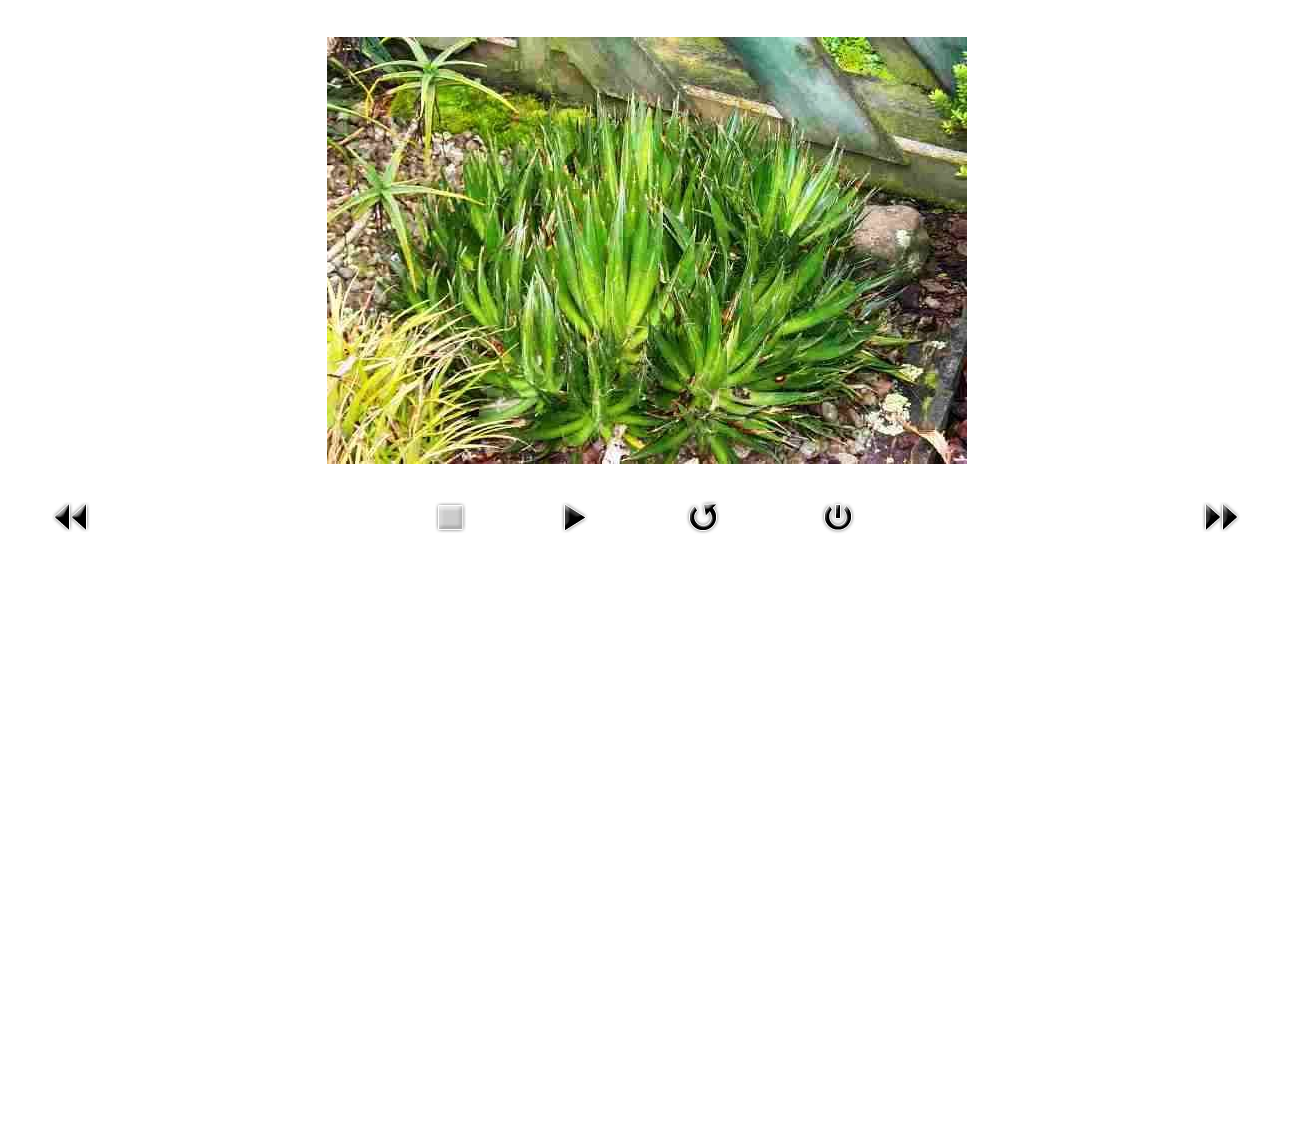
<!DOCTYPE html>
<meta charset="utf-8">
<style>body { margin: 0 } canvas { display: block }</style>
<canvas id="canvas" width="1293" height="1136"></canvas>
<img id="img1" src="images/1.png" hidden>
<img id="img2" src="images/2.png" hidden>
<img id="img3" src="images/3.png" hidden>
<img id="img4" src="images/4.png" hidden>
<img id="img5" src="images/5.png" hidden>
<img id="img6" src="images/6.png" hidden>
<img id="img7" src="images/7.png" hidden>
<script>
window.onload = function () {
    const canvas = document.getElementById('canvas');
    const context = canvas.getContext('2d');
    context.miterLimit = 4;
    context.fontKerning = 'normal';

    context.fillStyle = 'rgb(255, 255, 255)';
    context.fillRect(0, 0, 1293, 1136);
    context.drawImage(document.getElementById('img1'), 327, 37, 640, 427);
    context.drawImage(document.getElementById('img2'), 52, 502, 38, 30);
    context.drawImage(document.getElementById('img3'), 435, 502, 31, 31);
    context.drawImage(document.getElementById('img4'), 561, 502, 27, 31);
    context.drawImage(document.getElementById('img5'), 686, 500, 34, 34);
    context.drawImage(document.getElementById('img6'), 821, 501, 34, 33);
    context.drawImage(document.getElementById('img7'), 1202, 502, 38, 30);
};
</script>
